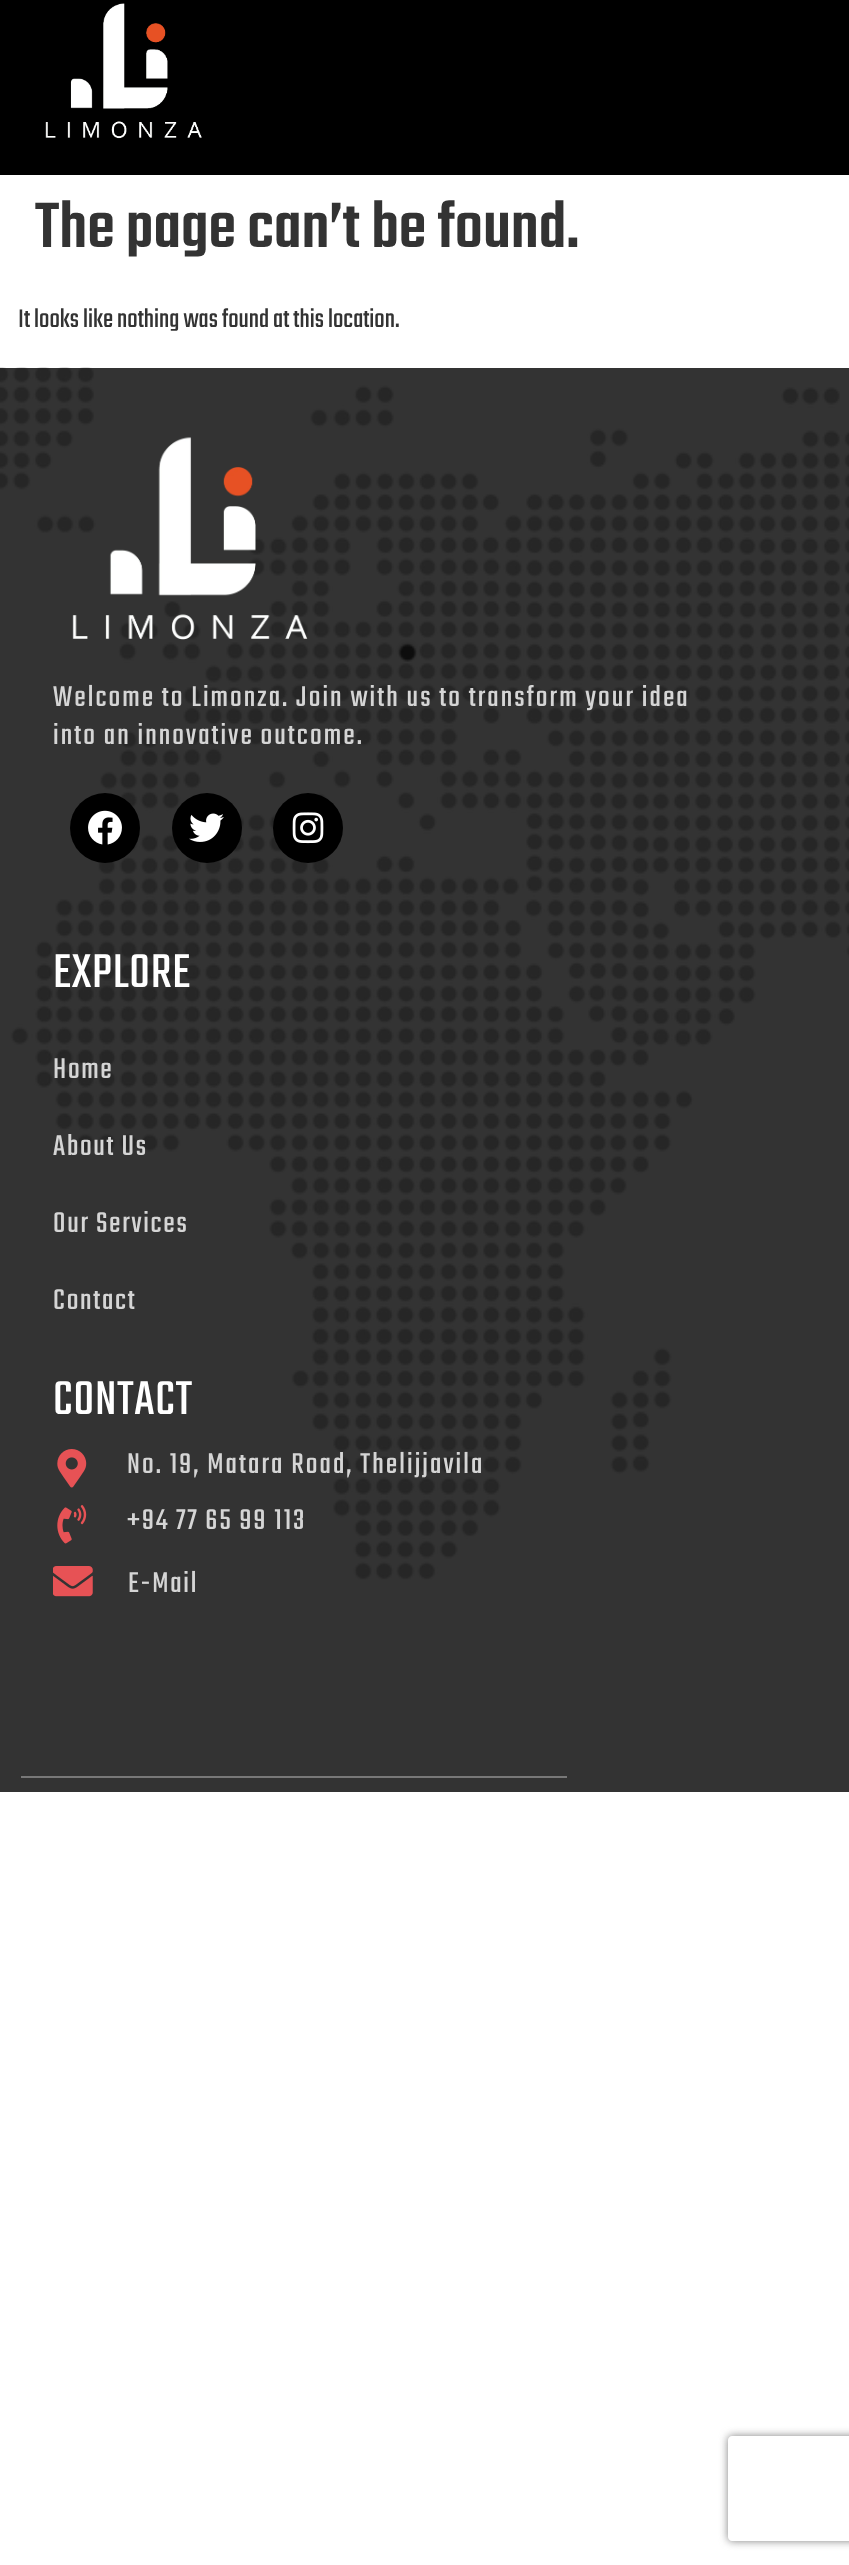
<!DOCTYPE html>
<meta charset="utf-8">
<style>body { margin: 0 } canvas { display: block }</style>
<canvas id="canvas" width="849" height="2565"></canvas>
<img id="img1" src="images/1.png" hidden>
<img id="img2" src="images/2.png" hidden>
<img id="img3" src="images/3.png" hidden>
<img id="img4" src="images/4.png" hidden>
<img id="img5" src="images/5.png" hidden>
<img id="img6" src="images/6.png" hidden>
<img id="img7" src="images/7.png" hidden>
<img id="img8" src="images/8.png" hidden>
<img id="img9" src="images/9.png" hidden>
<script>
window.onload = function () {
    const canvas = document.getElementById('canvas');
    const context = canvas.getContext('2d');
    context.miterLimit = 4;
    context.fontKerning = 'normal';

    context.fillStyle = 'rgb(255, 255, 255)';
    context.fillRect(0, 0, 849, 2565);
    context.fillStyle = 'rgb(51, 51, 51)';
    context.fillRect(0, 368, 849, 1424);
    context.fillStyle = 'rgb(0, 0, 0)';
    context.fillRect(0, 0, 849, 175);
    context.drawImage(document.getElementById('img1'), 45, 3, 157, 136);
    context.drawImage(document.getElementById('img2'), 0, 367, 849, 1213);
    context.drawImage(document.getElementById('img3'), 72, 437, 236, 203);
    context.beginPath();
    context.arc(105, 828, 35, 0, 2 * Math.PI);
    context.fill();
    context.drawImage(document.getElementById('img4'), 88, 810, 34, 35);
    context.beginPath();
    context.arc(207, 828, 35, 0, 2 * Math.PI);
    context.fill();
    context.drawImage(document.getElementById('img5'), 189, 813, 35, 29);
    context.beginPath();
    context.arc(308, 828, 35, 0, 2 * Math.PI);
    context.fill();
    context.drawImage(document.getElementById('img6'), 292, 812, 32, 32);
    context.drawImage(document.getElementById('img7'), 57, 1449, 30, 39);
    context.drawImage(document.getElementById('img8'), 57, 1505, 30, 39);
    context.drawImage(document.getElementById('img9'), 53, 1566, 40, 31);
    context.fillStyle = 'rgb(120, 120, 120)';
    context.fillRect(21, 1776, 546, 2);
    context.save();
    context.beginPath();
    context.moveTo(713, 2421);
    context.lineTo(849, 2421);
    context.lineTo(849, 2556);
    context.lineTo(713, 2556);
    context.closePath();
    context.moveTo(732, 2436);
    context.lineTo(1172, 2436);
    context.bezierCurveTo(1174, 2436, 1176, 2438, 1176, 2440);
    context.lineTo(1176, 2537);
    context.bezierCurveTo(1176, 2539, 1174, 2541, 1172, 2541);
    context.lineTo(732, 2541);
    context.bezierCurveTo(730, 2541, 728, 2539, 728, 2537);
    context.lineTo(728, 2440);
    context.bezierCurveTo(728, 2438, 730, 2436, 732, 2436);
    context.closePath();
    context.clip('evenodd');
    context.fillStyle = 'rgb(128, 128, 128)';
    context.filter = 'blur(4.5px)';
    context.beginPath();
    context.roundRect(728, 2436, 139, 105, 4);
    context.fill();
    context.filter = 'none';
    context.restore();
    context.font = '500 70px Teko';
    context.fillStyle = 'rgb(51, 51, 51)';
    context.fillText('The page can’t be found.', 35, 247);
    context.font = '28px Teko';
    context.fillText('It looks like nothing was found at this location.', 18, 327);
    context.letterSpacing = '2.1px';
    context.font = '31.5px Teko';
    context.fillStyle = 'rgb(213, 213, 213)';
    context.fillText('Welcome to Limonza. Join with us to transform your idea', 53, 706);
    context.fillText('into an innovative outcome.', 53, 744);
    context.letterSpacing = '0.75px';
    context.font = '52.5px Teko';
    context.fillStyle = 'rgb(255, 255, 255)';
    context.fillText('EXPLORE', 53, 987);
    context.letterSpacing = '1.75px';
    context.font = '31.5px Teko';
    context.fillStyle = 'rgb(213, 213, 213)';
    context.fillText('Home', 53, 1078);
    context.fillText('About Us', 53, 1155);
    context.fillText('Our Services', 53, 1232);
    context.fillText('Contact', 53, 1309);
    context.letterSpacing = '0.75px';
    context.font = '52.5px Teko';
    context.fillStyle = 'rgb(255, 255, 255)';
    context.fillText('CONTACT', 53, 1414);
    context.letterSpacing = '2.1px';
    context.font = '31.5px Teko';
    context.fillStyle = 'rgb(213, 213, 213)';
    context.fillText('No. 19, Matara Road, Thelijjavila', 127, 1473);
    context.fillText('+94 77 65 99 113', 127, 1529);
    context.letterSpacing = '1.75px';
    context.fillText('E-Mail', 128, 1592);
};
</script>
